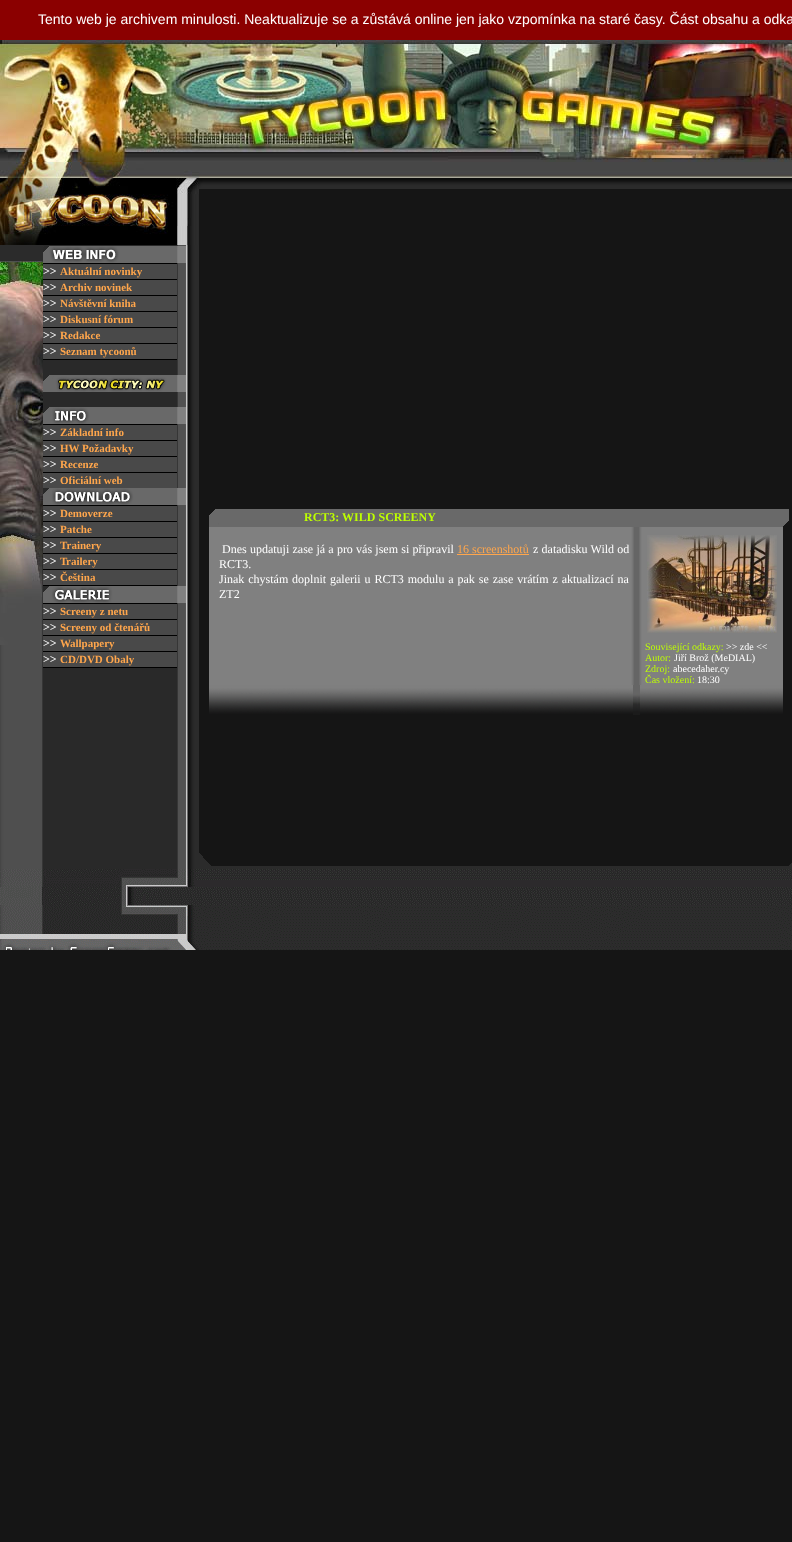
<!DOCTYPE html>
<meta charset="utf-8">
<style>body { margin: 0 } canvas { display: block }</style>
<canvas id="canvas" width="792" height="1542"></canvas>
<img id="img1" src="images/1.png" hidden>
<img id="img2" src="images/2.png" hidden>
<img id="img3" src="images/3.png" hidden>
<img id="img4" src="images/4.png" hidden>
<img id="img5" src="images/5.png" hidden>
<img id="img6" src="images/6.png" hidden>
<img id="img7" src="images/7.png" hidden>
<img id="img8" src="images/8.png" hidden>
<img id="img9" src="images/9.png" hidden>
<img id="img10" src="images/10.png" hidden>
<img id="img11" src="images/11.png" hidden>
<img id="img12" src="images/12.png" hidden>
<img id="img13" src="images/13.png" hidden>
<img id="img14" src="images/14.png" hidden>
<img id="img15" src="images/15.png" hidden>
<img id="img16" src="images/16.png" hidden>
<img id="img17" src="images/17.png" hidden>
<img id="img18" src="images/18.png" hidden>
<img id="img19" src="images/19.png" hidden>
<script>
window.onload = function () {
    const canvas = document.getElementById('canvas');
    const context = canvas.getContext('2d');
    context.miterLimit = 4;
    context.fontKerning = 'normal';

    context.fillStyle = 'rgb(21, 21, 21)';
    context.fillRect(0, 0, 792, 1542);
    context.fillStyle = 'rgb(139, 0, 0)';
    context.fillRect(0, 0, 792, 40);
    context.drawImage(document.getElementById('img1'), 0, 40, 792, 122);
    context.drawImage(document.getElementById('img2'), 0, 245, 199, 601);
    context.drawImage(document.getElementById('img3'), 0, 162, 199, 83);
    context.drawImage(document.getElementById('img4'), 0, 245, 43, 400);
    context.drawImage(document.getElementById('img5'), 43, 246, 143, 17);
    context.fillStyle = 'rgb(0, 0, 0)';
    context.fillRect(43, 263, 134, 1);
    context.fillStyle = 'rgb(73, 73, 73)';
    context.fillRect(43, 264, 134, 15);
    context.fillStyle = 'rgb(0, 0, 0)';
    context.fillRect(43, 279, 134, 1);
    context.fillStyle = 'rgb(73, 73, 73)';
    context.fillRect(43, 280, 134, 15);
    context.fillStyle = 'rgb(0, 0, 0)';
    context.fillRect(43, 295, 134, 1);
    context.fillStyle = 'rgb(73, 73, 73)';
    context.fillRect(43, 296, 134, 15);
    context.fillStyle = 'rgb(0, 0, 0)';
    context.fillRect(43, 311, 134, 1);
    context.fillStyle = 'rgb(73, 73, 73)';
    context.fillRect(43, 312, 134, 15);
    context.fillStyle = 'rgb(0, 0, 0)';
    context.fillRect(43, 327, 134, 1);
    context.fillStyle = 'rgb(73, 73, 73)';
    context.fillRect(43, 328, 134, 15);
    context.fillStyle = 'rgb(0, 0, 0)';
    context.fillRect(43, 343, 134, 1);
    context.fillStyle = 'rgb(73, 73, 73)';
    context.fillRect(43, 344, 134, 15);
    context.fillStyle = 'rgb(0, 0, 0)';
    context.fillRect(43, 359, 134, 1);
    context.drawImage(document.getElementById('img6'), 43, 375, 143, 17);
    context.drawImage(document.getElementById('img7'), 43, 407, 143, 17);
    context.fillRect(43, 424, 134, 1);
    context.fillStyle = 'rgb(73, 73, 73)';
    context.fillRect(43, 425, 134, 15);
    context.fillStyle = 'rgb(0, 0, 0)';
    context.fillRect(43, 440, 134, 1);
    context.fillStyle = 'rgb(73, 73, 73)';
    context.fillRect(43, 441, 134, 15);
    context.fillStyle = 'rgb(0, 0, 0)';
    context.fillRect(43, 456, 134, 1);
    context.fillStyle = 'rgb(73, 73, 73)';
    context.fillRect(43, 457, 134, 15);
    context.fillStyle = 'rgb(0, 0, 0)';
    context.fillRect(43, 472, 134, 1);
    context.fillStyle = 'rgb(73, 73, 73)';
    context.fillRect(43, 473, 134, 15);
    context.drawImage(document.getElementById('img8'), 43, 488, 143, 17);
    context.fillStyle = 'rgb(0, 0, 0)';
    context.fillRect(43, 505, 134, 1);
    context.fillStyle = 'rgb(73, 73, 73)';
    context.fillRect(43, 506, 134, 15);
    context.fillStyle = 'rgb(0, 0, 0)';
    context.fillRect(43, 521, 134, 1);
    context.fillStyle = 'rgb(73, 73, 73)';
    context.fillRect(43, 522, 134, 15);
    context.fillStyle = 'rgb(0, 0, 0)';
    context.fillRect(43, 537, 134, 1);
    context.fillStyle = 'rgb(73, 73, 73)';
    context.fillRect(43, 538, 134, 15);
    context.fillStyle = 'rgb(0, 0, 0)';
    context.fillRect(43, 553, 134, 1);
    context.fillStyle = 'rgb(73, 73, 73)';
    context.fillRect(43, 554, 134, 15);
    context.fillStyle = 'rgb(0, 0, 0)';
    context.fillRect(43, 569, 134, 1);
    context.fillStyle = 'rgb(73, 73, 73)';
    context.fillRect(43, 570, 134, 15);
    context.fillStyle = 'rgb(0, 0, 0)';
    context.fillRect(43, 585, 134, 1);
    context.drawImage(document.getElementById('img9'), 43, 586, 143, 17);
    context.fillRect(43, 603, 134, 1);
    context.fillStyle = 'rgb(73, 73, 73)';
    context.fillRect(43, 604, 134, 15);
    context.fillStyle = 'rgb(0, 0, 0)';
    context.fillRect(43, 619, 134, 1);
    context.fillStyle = 'rgb(73, 73, 73)';
    context.fillRect(43, 620, 134, 15);
    context.fillStyle = 'rgb(0, 0, 0)';
    context.fillRect(43, 635, 134, 1);
    context.fillStyle = 'rgb(73, 73, 73)';
    context.fillRect(43, 636, 134, 15);
    context.fillStyle = 'rgb(0, 0, 0)';
    context.fillRect(43, 651, 134, 1);
    context.fillStyle = 'rgb(73, 73, 73)';
    context.fillRect(43, 652, 134, 15);
    context.fillStyle = 'rgb(0, 0, 0)';
    context.fillRect(43, 667, 134, 1);
    context.drawImage(document.getElementById('img10'), 199, 162, 593, 16);
    context.drawImage(document.getElementById('img11'), 199, 178, 593, 11);
    context.drawImage(document.getElementById('img12'), 209, 509, 580, 18);
    context.drawImage(document.getElementById('img13'), 209, 527, 574, 158);
    context.fillStyle = 'rgb(255, 166, 76)';
    context.fillRect(457, 554, 72, 1);
    context.drawImage(document.getElementById('img14'), 647, 535, 130, 98);
    context.drawImage(document.getElementById('img15'), 209, 685, 574, 30);
    context.drawImage(document.getElementById('img16'), 0, 846, 792, 23);
    context.drawImage(document.getElementById('img17'), 0, 869, 792, 18);
    context.drawImage(document.getElementById('img18'), 0, 887, 792, 18);
    context.drawImage(document.getElementById('img19'), 0, 905, 792, 45);
    context.font = '14px Liberation Sans';
    context.fillStyle = 'rgb(255, 255, 255)';
    context.fillText('Tento web je archivem minulosti. Neaktualizuje se a zůstává online jen jako vzpomínka na staré časy. Část obsahu a odka', 38, 24);
    context.font = 'bold 12px Liberation Serif';
    context.fillText('>>', 43, 275);
    context.font = 'bold 11px Liberation Serif';
    context.fillStyle = 'rgb(255, 166, 76)';
    context.fillText('Aktuální novinky', 60, 275);
    context.font = 'bold 12px Liberation Serif';
    context.fillStyle = 'rgb(255, 255, 255)';
    context.fillText('>>', 43, 291);
    context.font = 'bold 11px Liberation Serif';
    context.fillStyle = 'rgb(255, 166, 76)';
    context.fillText('Archiv novinek', 60, 291);
    context.font = 'bold 12px Liberation Serif';
    context.fillStyle = 'rgb(255, 255, 255)';
    context.fillText('>>', 43, 307);
    context.font = 'bold 11px Liberation Serif';
    context.fillStyle = 'rgb(255, 166, 76)';
    context.fillText('Návštěvní kniha', 60, 307);
    context.font = 'bold 12px Liberation Serif';
    context.fillStyle = 'rgb(255, 255, 255)';
    context.fillText('>>', 43, 323);
    context.font = 'bold 11px Liberation Serif';
    context.fillStyle = 'rgb(255, 166, 76)';
    context.fillText('Diskusní fórum', 60, 323);
    context.font = 'bold 12px Liberation Serif';
    context.fillStyle = 'rgb(255, 255, 255)';
    context.fillText('>>', 43, 339);
    context.font = 'bold 11px Liberation Serif';
    context.fillStyle = 'rgb(255, 166, 76)';
    context.fillText('Redakce', 60, 339);
    context.font = 'bold 12px Liberation Serif';
    context.fillStyle = 'rgb(255, 255, 255)';
    context.fillText('>>', 43, 355);
    context.font = 'bold 11px Liberation Serif';
    context.fillStyle = 'rgb(255, 166, 76)';
    context.fillText('Seznam tycoonů', 60, 355);
    context.font = 'bold 12px Liberation Serif';
    context.fillStyle = 'rgb(255, 255, 255)';
    context.fillText('>>', 43, 436);
    context.font = 'bold 11px Liberation Serif';
    context.fillStyle = 'rgb(255, 166, 76)';
    context.fillText('Základní info', 60, 436);
    context.font = 'bold 12px Liberation Serif';
    context.fillStyle = 'rgb(255, 255, 255)';
    context.fillText('>>', 43, 452);
    context.font = 'bold 11px Liberation Serif';
    context.fillStyle = 'rgb(255, 166, 76)';
    context.fillText('HW Požadavky', 60, 452);
    context.font = 'bold 12px Liberation Serif';
    context.fillStyle = 'rgb(255, 255, 255)';
    context.fillText('>>', 43, 468);
    context.font = 'bold 11px Liberation Serif';
    context.fillStyle = 'rgb(255, 166, 76)';
    context.fillText('Recenze', 60, 468);
    context.font = 'bold 12px Liberation Serif';
    context.fillStyle = 'rgb(255, 255, 255)';
    context.fillText('>>', 43, 484);
    context.font = 'bold 11px Liberation Serif';
    context.fillStyle = 'rgb(255, 166, 76)';
    context.fillText('Oficiální web', 60, 484);
    context.font = 'bold 12px Liberation Serif';
    context.fillStyle = 'rgb(255, 255, 255)';
    context.fillText('>>', 43, 517);
    context.font = 'bold 11px Liberation Serif';
    context.fillStyle = 'rgb(255, 166, 76)';
    context.fillText('Demoverze', 60, 517);
    context.font = 'bold 12px Liberation Serif';
    context.fillStyle = 'rgb(255, 255, 255)';
    context.fillText('>>', 43, 533);
    context.font = 'bold 11px Liberation Serif';
    context.fillStyle = 'rgb(255, 166, 76)';
    context.fillText('Patche', 60, 533);
    context.font = 'bold 12px Liberation Serif';
    context.fillStyle = 'rgb(255, 255, 255)';
    context.fillText('>>', 43, 549);
    context.font = 'bold 11px Liberation Serif';
    context.fillStyle = 'rgb(255, 166, 76)';
    context.fillText('Trainery', 60, 549);
    context.font = 'bold 12px Liberation Serif';
    context.fillStyle = 'rgb(255, 255, 255)';
    context.fillText('>>', 43, 565);
    context.font = 'bold 11px Liberation Serif';
    context.fillStyle = 'rgb(255, 166, 76)';
    context.fillText('T', 60, 565);
    context.fillText('railery', 66, 565);
    context.font = 'bold 12px Liberation Serif';
    context.fillStyle = 'rgb(255, 255, 255)';
    context.fillText('>>', 43, 581);
    context.font = 'bold 11px Liberation Serif';
    context.fillStyle = 'rgb(255, 166, 76)';
    context.fillText('Čeština', 60, 581);
    context.font = 'bold 12px Liberation Serif';
    context.fillStyle = 'rgb(255, 255, 255)';
    context.fillText('>>', 43, 615);
    context.font = 'bold 11px Liberation Serif';
    context.fillStyle = 'rgb(255, 166, 76)';
    context.fillText('Screeny z netu', 60, 615);
    context.font = 'bold 12px Liberation Serif';
    context.fillStyle = 'rgb(255, 255, 255)';
    context.fillText('>>', 43, 631);
    context.font = 'bold 11px Liberation Serif';
    context.fillStyle = 'rgb(255, 166, 76)';
    context.fillText('Screeny od čtenářů', 60, 631);
    context.font = 'bold 12px Liberation Serif';
    context.fillStyle = 'rgb(255, 255, 255)';
    context.fillText('>>', 43, 647);
    context.font = 'bold 11px Liberation Serif';
    context.fillStyle = 'rgb(255, 166, 76)';
    context.fillText('W', 60, 647);
    context.fillText('allpapery', 70, 647);
    context.font = 'bold 12px Liberation Serif';
    context.fillStyle = 'rgb(255, 255, 255)';
    context.fillText('>>', 43, 663);
    context.font = 'bold 11px Liberation Serif';
    context.fillStyle = 'rgb(255, 166, 76)';
    context.fillText('CD/DVD Obaly', 60, 663);
    context.font = 'bold 12px Liberation Serif';
    context.fillStyle = 'rgb(190, 255, 0)';
    context.fillText('RCT3: WILD SCREENY', 304, 521);
    context.wordSpacing = '0.25px';
    context.font = '12px Liberation Serif';
    context.fillStyle = 'rgb(255, 255, 255)';
    context.fillText('Dnes updatuji zase já a pro vás jsem si připravil', 222, 553);
    context.wordSpacing = '0px';
    context.fillStyle = 'rgb(255, 166, 76)';
    context.fillText('16 screenshotů', 457, 553);
    context.wordSpacing = '0.25px';
    context.fillStyle = 'rgb(255, 255, 255)';
    context.fillText('z datadisku Wild od', 533, 553);
    context.wordSpacing = '0px';
    context.fillText('RCT3.', 219, 568);
    context.wordSpacing = '0.9px';
    context.fillText('Jinak chystám doplnit galerii u RCT3 modulu a pak se zase vrátím z aktualizací na', 219, 583);
    context.wordSpacing = '0px';
    context.fillText('ZT2', 219, 598);
    context.font = '10px Liberation Serif';
    context.fillStyle = 'rgb(190, 255, 0)';
    context.fillText('Související odkazy:', 645, 650);
    context.fillStyle = 'rgb(255, 255, 255)';
    context.fillText('>> zde <<', 726, 650);
    context.fillStyle = 'rgb(190, 255, 0)';
    context.fillText('Autor:', 645, 661);
    context.fillStyle = 'rgb(255, 255, 255)';
    context.fillText('Jiří Brož (MeDIAL)', 674, 661);
    context.fillStyle = 'rgb(190, 255, 0)';
    context.fillText('Zdroj:', 645, 672);
    context.fillStyle = 'rgb(255, 255, 255)';
    context.fillText('abecedaher.cy', 673, 672);
    context.fillStyle = 'rgb(190, 255, 0)';
    context.fillText('Čas vložení:', 645, 683);
    context.fillStyle = 'rgb(255, 255, 255)';
    context.fillText('18:30', 697, 683);
};
</script>
